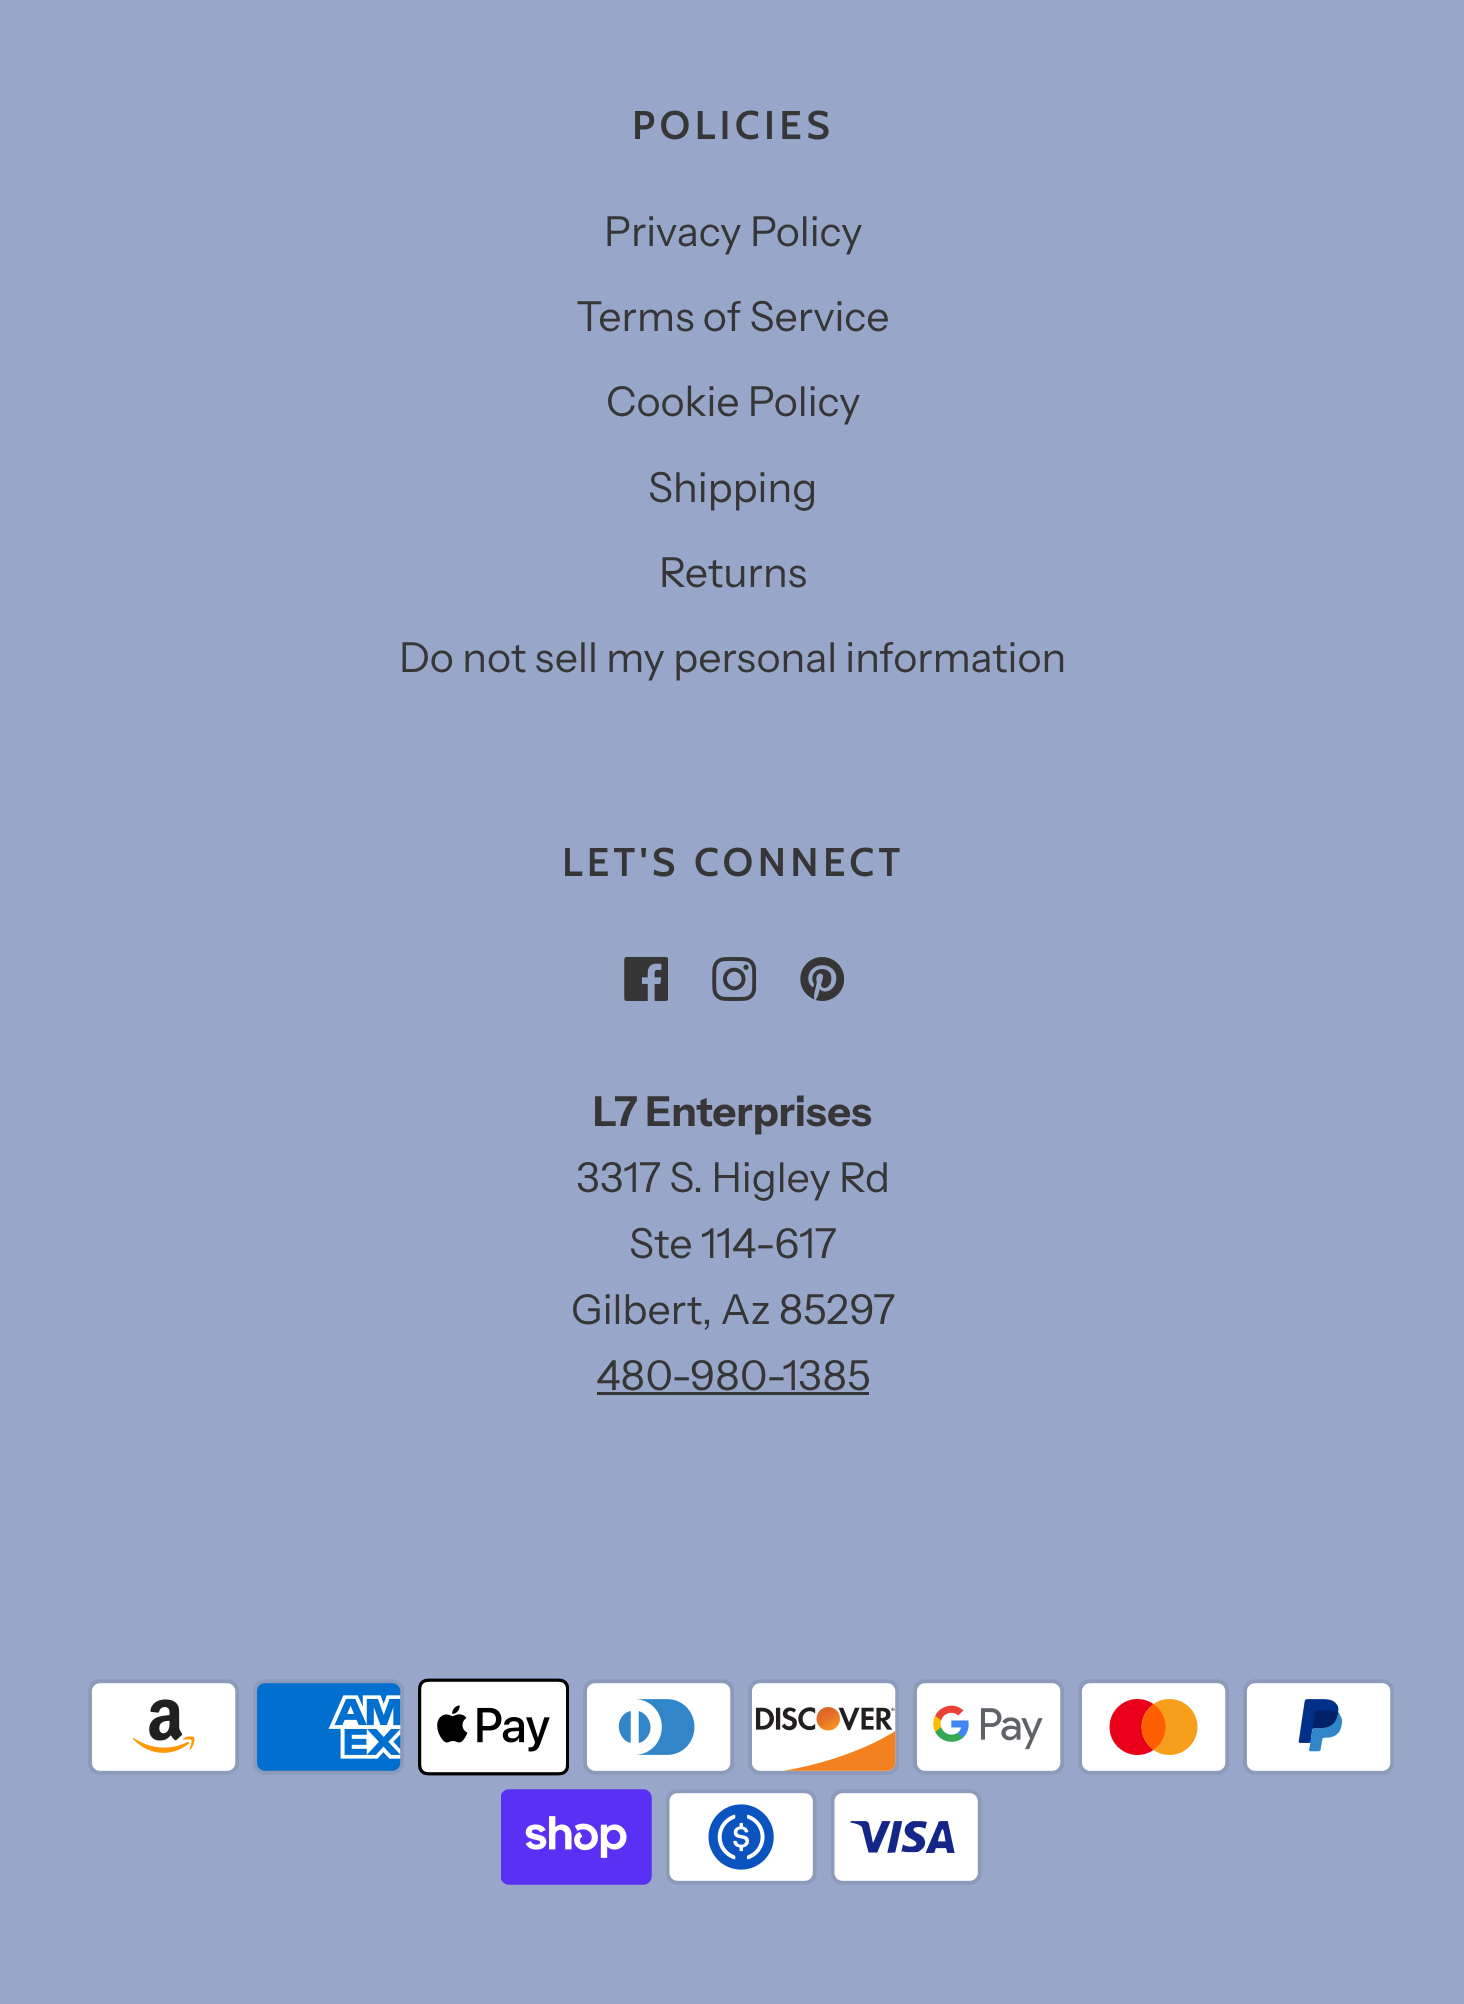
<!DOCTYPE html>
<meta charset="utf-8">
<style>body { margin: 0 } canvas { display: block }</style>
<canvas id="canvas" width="1464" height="2004"></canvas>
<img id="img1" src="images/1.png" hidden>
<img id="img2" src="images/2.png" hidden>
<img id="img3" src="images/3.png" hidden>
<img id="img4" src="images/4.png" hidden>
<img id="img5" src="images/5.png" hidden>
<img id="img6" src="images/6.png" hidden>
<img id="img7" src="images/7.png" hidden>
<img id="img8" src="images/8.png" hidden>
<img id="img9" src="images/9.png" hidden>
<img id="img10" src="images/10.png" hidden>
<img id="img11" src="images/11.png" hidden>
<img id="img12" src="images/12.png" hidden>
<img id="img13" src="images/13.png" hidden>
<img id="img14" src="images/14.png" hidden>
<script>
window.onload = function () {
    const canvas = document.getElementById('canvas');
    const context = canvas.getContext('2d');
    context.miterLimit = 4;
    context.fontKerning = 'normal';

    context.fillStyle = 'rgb(152, 166, 201)';
    context.fillRect(0, 0, 1464, 2004);
    context.drawImage(document.getElementById('img1'), 624, 957, 44, 44);
    context.drawImage(document.getElementById('img2'), 712, 957, 44, 44);
    context.drawImage(document.getElementById('img3'), 800, 957, 44, 44);
    context.fillStyle = 'rgb(54, 54, 54)';
    context.fillRect(597, 1392, 272, 3);
    context.drawImage(document.getElementById('img4'), 88, 1679, 151, 96);
    context.drawImage(document.getElementById('img5'), 253, 1679, 151, 96);
    context.drawImage(document.getElementById('img6'), 418, 1678, 151, 98);
    context.drawImage(document.getElementById('img7'), 583, 1679, 151, 96);
    context.drawImage(document.getElementById('img8'), 748, 1679, 151, 96);
    context.drawImage(document.getElementById('img9'), 913, 1679, 151, 96);
    context.drawImage(document.getElementById('img10'), 1078, 1679, 151, 96);
    context.drawImage(document.getElementById('img11'), 1243, 1679, 151, 96);
    context.drawImage(document.getElementById('img12'), 501, 1789, 151, 96);
    context.drawImage(document.getElementById('img13'), 666, 1789, 151, 96);
    context.drawImage(document.getElementById('img14'), 831, 1789, 151, 96);
    context.letterSpacing = '5.5px';
    context.font = 'bold 38.5px Cabin';
    context.fillText('POLICIES', 632, 139);
    context.letterSpacing = '0px';
    context.font = '41.25px Instrument Sans';
    context.fillText('Privacy Policy', 604, 246);
    context.fillText('Terms of Service', 576, 331);
    context.fillText('Cookie Policy', 606, 416);
    context.fillText('Shipping', 648, 502);
    context.fillText('Returns', 659, 587);
    context.fillText('Do not sell my personal information', 399, 672);
    context.letterSpacing = '5.5px';
    context.font = 'bold 38.5px Cabin';
    context.fillText('LET\'S CONNECT', 562, 876);
    context.letterSpacing = '0px';
    context.font = 'bold 41.25px Instrument Sans';
    context.fillText('L7 Enterprises', 593, 1126);
    context.font = '41.25px Instrument Sans';
    context.fillText('3317 S. Higley Rd', 576, 1192);
    context.fillText('Ste 114-617', 629, 1258);
    context.fillText('Gilbert, Az 85297', 571, 1324);
    context.fillText('480-980-1385', 596, 1390);
};
</script>
